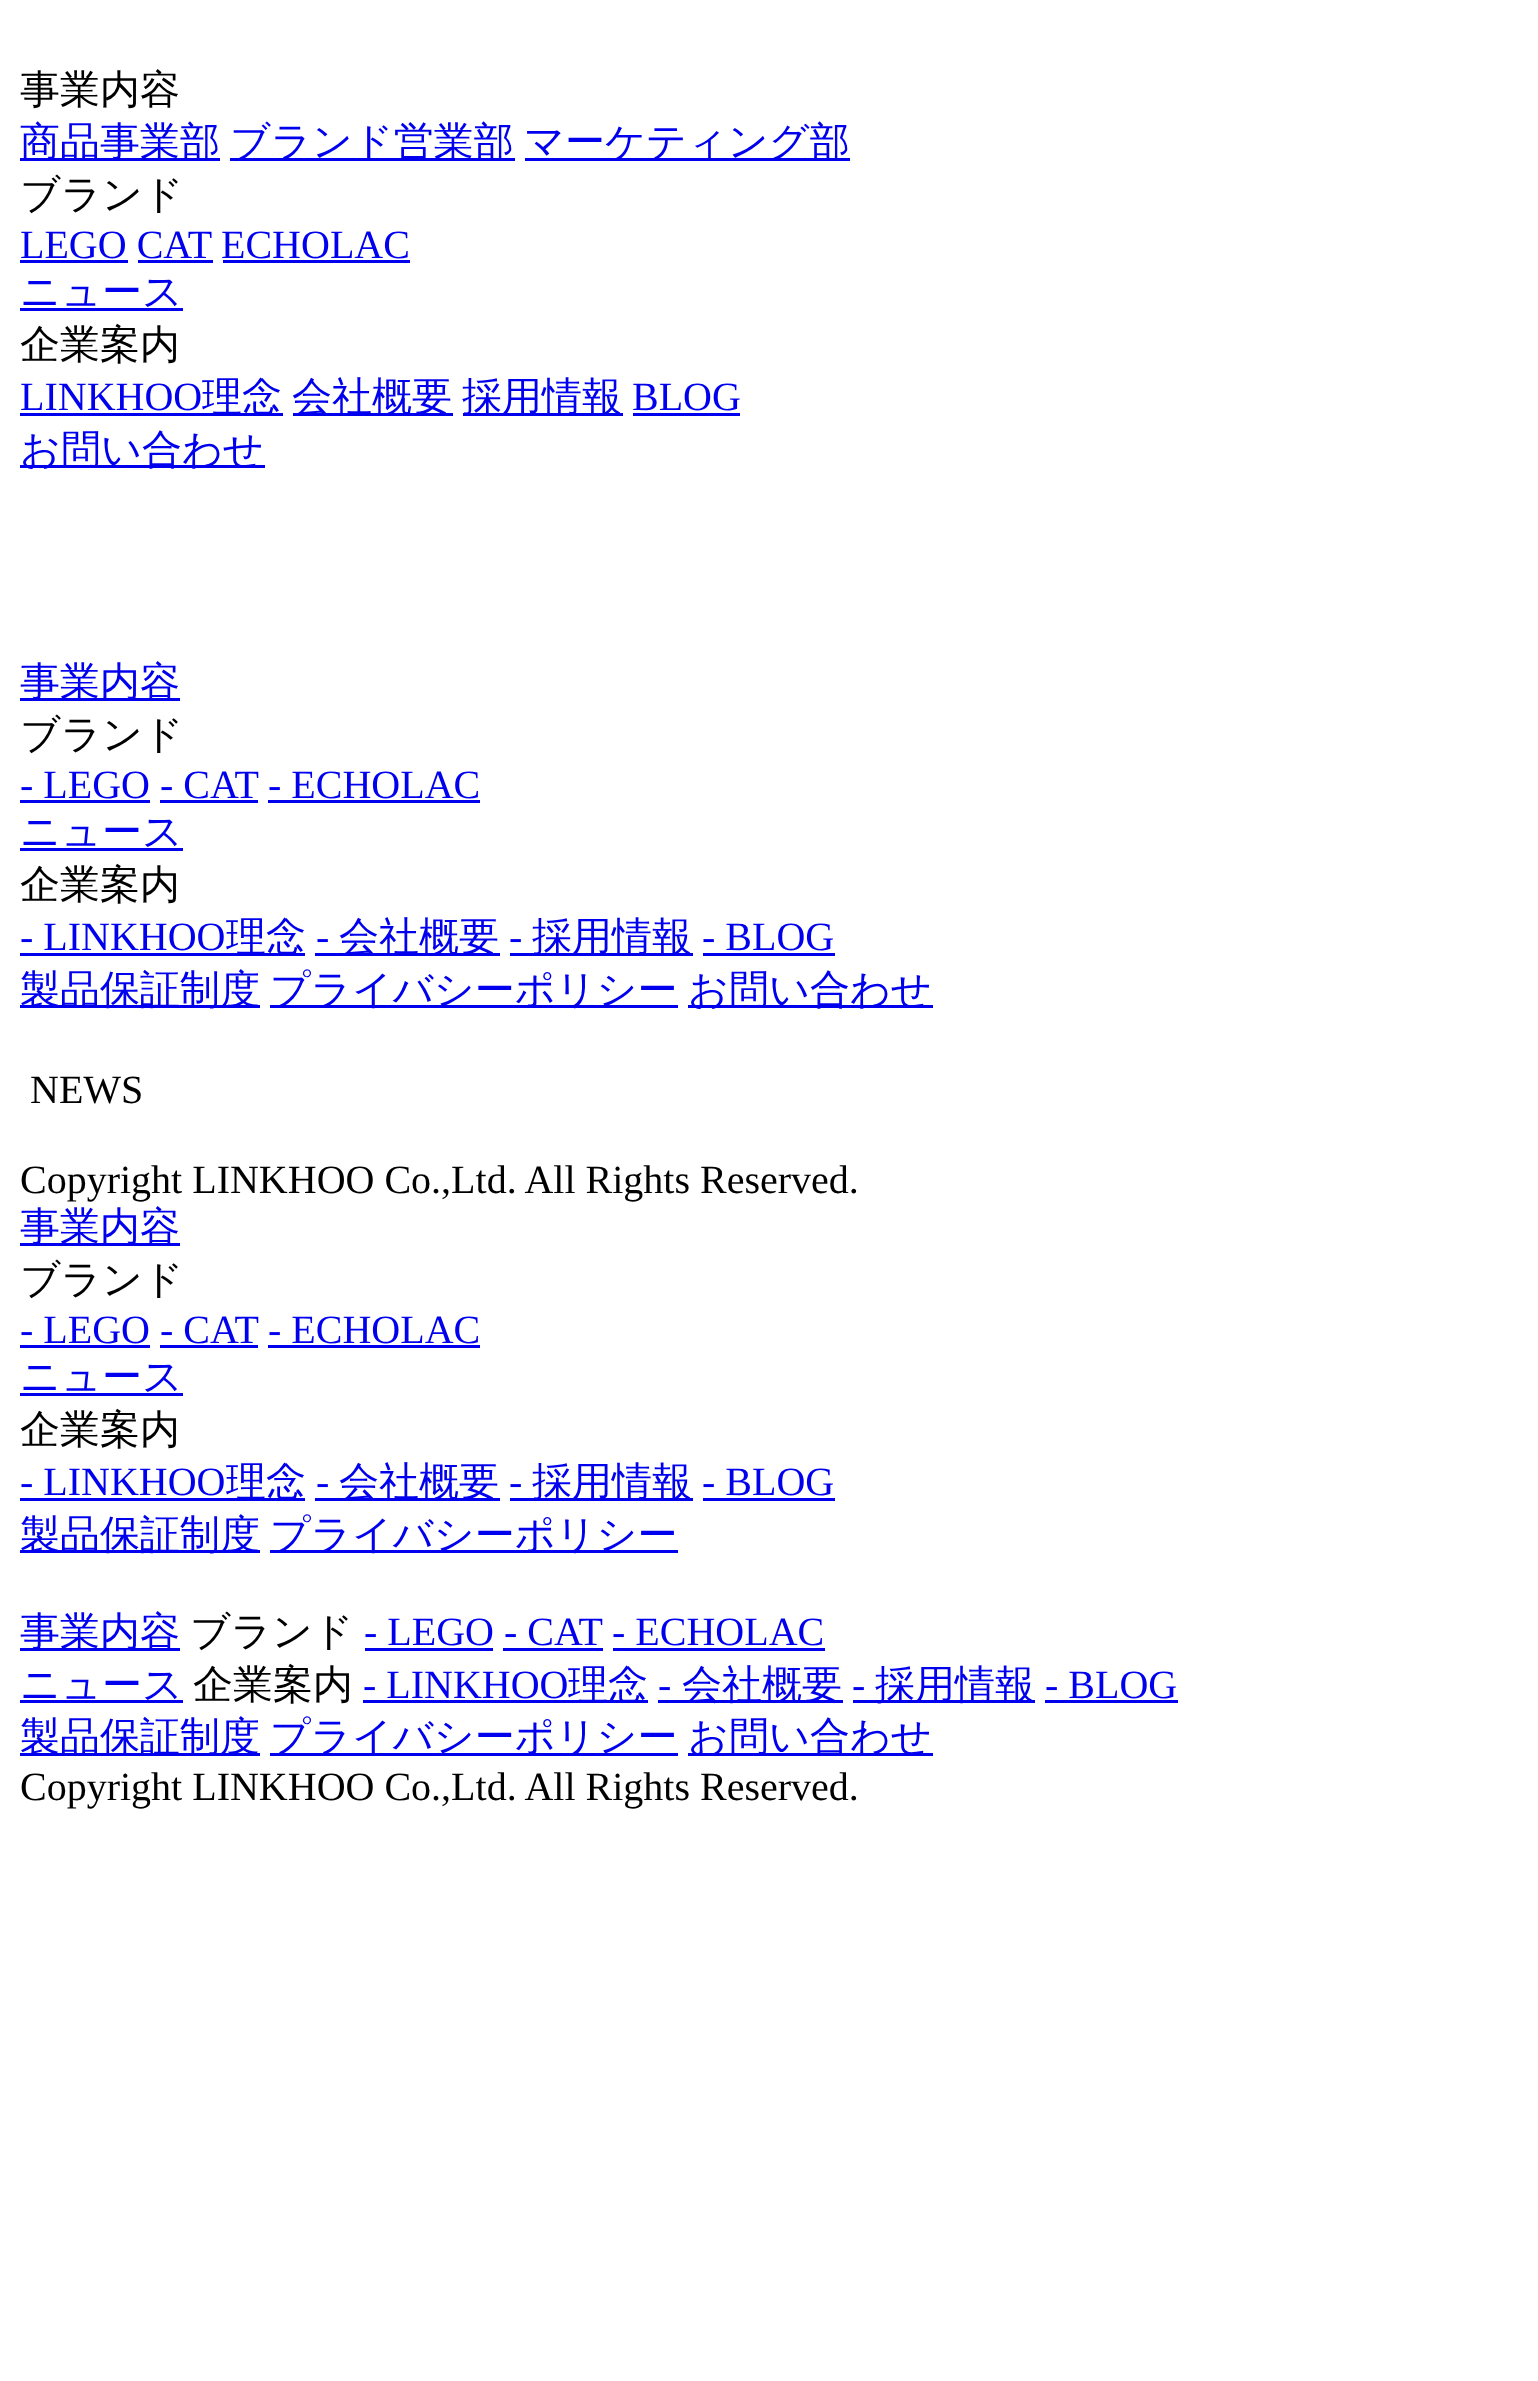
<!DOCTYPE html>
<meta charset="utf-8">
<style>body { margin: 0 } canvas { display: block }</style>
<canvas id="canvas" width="1538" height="2381"></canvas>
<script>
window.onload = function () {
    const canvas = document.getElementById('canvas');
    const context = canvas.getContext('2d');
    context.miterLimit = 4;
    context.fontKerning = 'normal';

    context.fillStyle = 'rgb(255, 255, 255)';
    context.fillRect(0, 0, 1538, 2381);
    context.fillStyle = 'rgb(0, 0, 238)';
    context.fillRect(20, 158, 200, 3);
    context.fillRect(230, 158, 285, 3);
    context.fillRect(525, 158, 325, 3);
    context.fillRect(20, 260, 108, 3);
    context.fillRect(223, 260, 187, 3);
    context.fillRect(138, 260, 75, 3);
    context.fillRect(20, 308, 163, 3);
    context.fillRect(20, 413, 263, 3);
    context.fillRect(293, 413, 160, 3);
    context.fillRect(463, 413, 160, 3);
    context.fillRect(633, 413, 107, 3);
    context.fillRect(20, 465, 245, 3);
    context.fillRect(20, 698, 160, 3);
    context.fillRect(20, 800, 130, 3);
    context.fillRect(268, 800, 212, 3);
    context.fillRect(160, 800, 98, 3);
    context.fillRect(20, 848, 163, 3);
    context.fillRect(20, 953, 285, 3);
    context.fillRect(315, 953, 185, 3);
    context.fillRect(510, 953, 183, 3);
    context.fillRect(703, 953, 132, 3);
    context.fillRect(20, 1005, 240, 3);
    context.fillRect(270, 1005, 408, 3);
    context.fillRect(688, 1005, 245, 3);
    context.fillRect(20, 1243, 160, 3);
    context.fillRect(20, 1345, 130, 3);
    context.fillRect(268, 1345, 212, 3);
    context.fillRect(160, 1345, 98, 3);
    context.fillRect(20, 1393, 163, 3);
    context.fillRect(20, 1498, 285, 3);
    context.fillRect(315, 1498, 185, 3);
    context.fillRect(510, 1498, 183, 3);
    context.fillRect(703, 1498, 132, 3);
    context.fillRect(20, 1550, 240, 3);
    context.fillRect(270, 1550, 408, 3);
    context.fillRect(20, 1648, 160, 3);
    context.fillRect(365, 1648, 128, 3);
    context.fillRect(613, 1648, 212, 3);
    context.fillRect(503, 1648, 100, 3);
    context.fillRect(20, 1700, 163, 3);
    context.fillRect(363, 1700, 285, 3);
    context.fillRect(658, 1700, 185, 3);
    context.fillRect(853, 1700, 182, 3);
    context.fillRect(1045, 1700, 133, 3);
    context.fillRect(20, 1753, 240, 3);
    context.fillRect(270, 1753, 408, 3);
    context.fillRect(688, 1753, 245, 3);
    context.font = '500 40px WenQuanYi Zen Hei';
    context.fillStyle = 'rgb(0, 0, 0)';
    context.fillText('事業内容', 20, 103);
    context.fillStyle = 'rgb(0, 0, 238)';
    context.fillText('商品事業部', 20, 155);
    context.fillText('ブランド営業部', 230, 155);
    context.fillText('マーケティング部', 524, 155);
    context.fillStyle = 'rgb(0, 0, 0)';
    context.fillText('ブランド', 20, 208);
    context.font = '40px Liberation Serif';
    context.fillStyle = 'rgb(0, 0, 238)';
    context.fillText('LEGO CAT', 20, 258);
    context.fillText('ECHOLAC', 221, 258);
    context.font = '500 40px WenQuanYi Zen Hei';
    context.fillText('ニュース', 20, 305);
    context.fillStyle = 'rgb(0, 0, 0)';
    context.fillText('企業案内', 20, 358);
    context.font = '40px Liberation Serif';
    context.fillStyle = 'rgb(0, 0, 238)';
    context.fillText('LINKHOO', 20, 410);
    context.font = '500 40px WenQuanYi Zen Hei';
    context.fillText('理念', 202, 410);
    context.fillText('会社概要', 292, 410);
    context.fillText('採用情報', 462, 410);
    context.font = '40px Liberation Serif';
    context.fillText('BLOG', 632, 410);
    context.font = '500 40px WenQuanYi Zen Hei';
    context.fillText('お問い合わせ', 20, 463);
    context.fillText('事業内容', 20, 695);
    context.fillStyle = 'rgb(0, 0, 0)';
    context.fillText('ブランド', 20, 748);
    context.font = '40px Liberation Serif';
    context.fillStyle = 'rgb(0, 0, 238)';
    context.fillText('- LEGO - CAT', 20, 798);
    context.fillText('- ECHOLAC', 268, 798);
    context.font = '500 40px WenQuanYi Zen Hei';
    context.fillText('ニュース', 20, 845);
    context.fillStyle = 'rgb(0, 0, 0)';
    context.fillText('企業案内', 20, 898);
    context.font = '40px Liberation Serif';
    context.fillStyle = 'rgb(0, 0, 238)';
    context.fillText('- LINKHOO', 20, 950);
    context.font = '500 40px WenQuanYi Zen Hei';
    context.fillText('理念', 226, 950);
    context.font = '40px Liberation Serif';
    context.fillText('-', 316, 950);
    context.font = '500 40px WenQuanYi Zen Hei';
    context.fillText('会社概要', 339, 950);
    context.font = '40px Liberation Serif';
    context.fillText('-', 509, 950);
    context.font = '500 40px WenQuanYi Zen Hei';
    context.fillText('採用情報', 532, 950);
    context.font = '40px Liberation Serif';
    context.fillText('- BLOG', 702, 950);
    context.font = '500 40px WenQuanYi Zen Hei';
    context.fillText('製品保証制度', 20, 1003);
    context.fillText('プライバシーポリシー', 270, 1003);
    context.fillText('お問い合わせ', 688, 1003);
    context.font = '40px Liberation Serif';
    context.fillStyle = 'rgb(0, 0, 0)';
    context.fillText('NEWS', 30, 1103);
    context.fillText('Copyright LINKHOO Co.,Ltd. All Rights Reserved.', 20, 1193);
    context.font = '500 40px WenQuanYi Zen Hei';
    context.fillStyle = 'rgb(0, 0, 238)';
    context.fillText('事業内容', 20, 1240);
    context.fillStyle = 'rgb(0, 0, 0)';
    context.fillText('ブランド', 20, 1293);
    context.font = '40px Liberation Serif';
    context.fillStyle = 'rgb(0, 0, 238)';
    context.fillText('- LEGO - CAT', 20, 1343);
    context.fillText('- ECHOLAC', 268, 1343);
    context.font = '500 40px WenQuanYi Zen Hei';
    context.fillText('ニュース', 20, 1390);
    context.fillStyle = 'rgb(0, 0, 0)';
    context.fillText('企業案内', 20, 1443);
    context.font = '40px Liberation Serif';
    context.fillStyle = 'rgb(0, 0, 238)';
    context.fillText('- LINKHOO', 20, 1495);
    context.font = '500 40px WenQuanYi Zen Hei';
    context.fillText('理念', 226, 1495);
    context.font = '40px Liberation Serif';
    context.fillText('-', 316, 1495);
    context.font = '500 40px WenQuanYi Zen Hei';
    context.fillText('会社概要', 339, 1495);
    context.font = '40px Liberation Serif';
    context.fillText('-', 509, 1495);
    context.font = '500 40px WenQuanYi Zen Hei';
    context.fillText('採用情報', 532, 1495);
    context.font = '40px Liberation Serif';
    context.fillText('- BLOG', 702, 1495);
    context.font = '500 40px WenQuanYi Zen Hei';
    context.fillText('製品保証制度', 20, 1548);
    context.fillText('プライバシーポリシー', 270, 1548);
    context.fillText('事業内容', 20, 1645);
    context.fillStyle = 'rgb(0, 0, 0)';
    context.fillText('ブランド', 190, 1645);
    context.font = '40px Liberation Serif';
    context.fillStyle = 'rgb(0, 0, 238)';
    context.fillText('- LEGO - CAT', 364, 1645);
    context.fillText('- ECHOLAC', 612, 1645);
    context.font = '500 40px WenQuanYi Zen Hei';
    context.fillText('ニュース', 20, 1698);
    context.fillStyle = 'rgb(0, 0, 0)';
    context.fillText('企業案内', 193, 1698);
    context.font = '40px Liberation Serif';
    context.fillStyle = 'rgb(0, 0, 238)';
    context.fillText('- LINKHOO', 363, 1698);
    context.font = '500 40px WenQuanYi Zen Hei';
    context.fillText('理念', 568, 1698);
    context.font = '40px Liberation Serif';
    context.fillText('-', 658, 1698);
    context.font = '500 40px WenQuanYi Zen Hei';
    context.fillText('会社概要', 682, 1698);
    context.font = '40px Liberation Serif';
    context.fillText('-', 852, 1698);
    context.font = '500 40px WenQuanYi Zen Hei';
    context.fillText('採用情報', 875, 1698);
    context.font = '40px Liberation Serif';
    context.fillText('- BLOG', 1045, 1698);
    context.font = '500 40px WenQuanYi Zen Hei';
    context.fillText('製品保証制度', 20, 1750);
    context.fillText('プライバシーポリシー', 270, 1750);
    context.fillText('お問い合わせ', 688, 1750);
    context.font = '40px Liberation Serif';
    context.fillStyle = 'rgb(0, 0, 0)';
    context.fillText('Copyright LINKHOO Co.,Ltd. All Rights Reserved.', 20, 1800);
};
</script>
